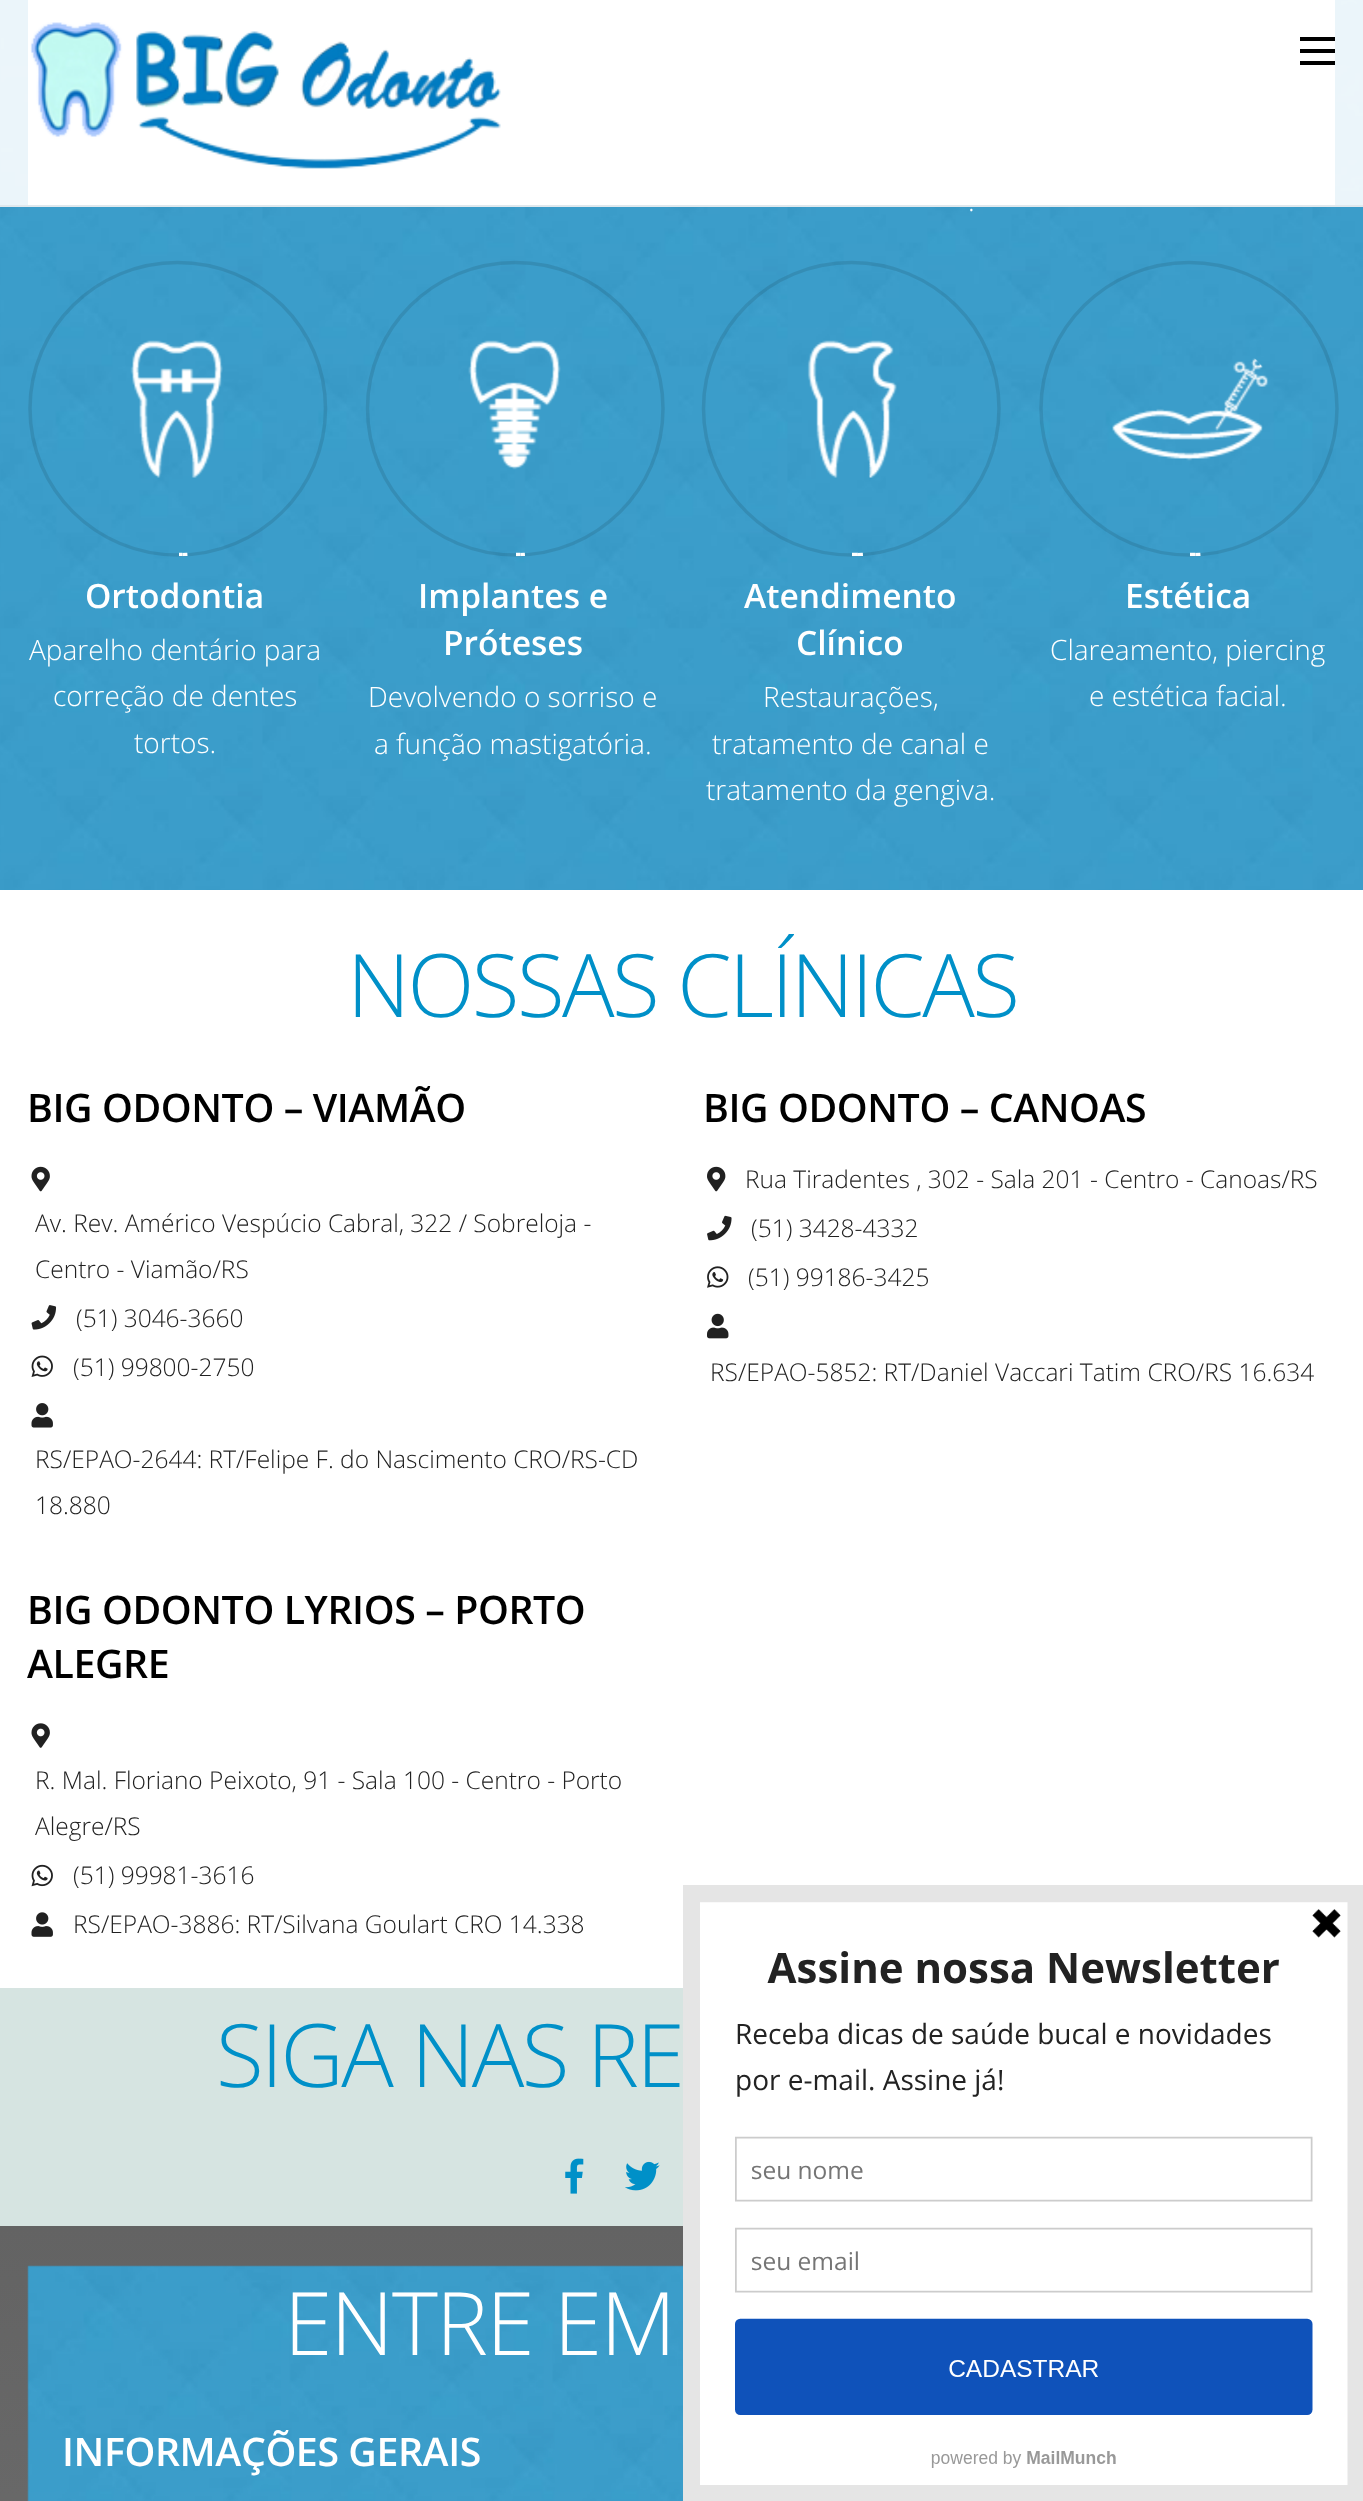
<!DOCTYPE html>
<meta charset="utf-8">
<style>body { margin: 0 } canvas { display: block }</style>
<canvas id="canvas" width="1363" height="2501"></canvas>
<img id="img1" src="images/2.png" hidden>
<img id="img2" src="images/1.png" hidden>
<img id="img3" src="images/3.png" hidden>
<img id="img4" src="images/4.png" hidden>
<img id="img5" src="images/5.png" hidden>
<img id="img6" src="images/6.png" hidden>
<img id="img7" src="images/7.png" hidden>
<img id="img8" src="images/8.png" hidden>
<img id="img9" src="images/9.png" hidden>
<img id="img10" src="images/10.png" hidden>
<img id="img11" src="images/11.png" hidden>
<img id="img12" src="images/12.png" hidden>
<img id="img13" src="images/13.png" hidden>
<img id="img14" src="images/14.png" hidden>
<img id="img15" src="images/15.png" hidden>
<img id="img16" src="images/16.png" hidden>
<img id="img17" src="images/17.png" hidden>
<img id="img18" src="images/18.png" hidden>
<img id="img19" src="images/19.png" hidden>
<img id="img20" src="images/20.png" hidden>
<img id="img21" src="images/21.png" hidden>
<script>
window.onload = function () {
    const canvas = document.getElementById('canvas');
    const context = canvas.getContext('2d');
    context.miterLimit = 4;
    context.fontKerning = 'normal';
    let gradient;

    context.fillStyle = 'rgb(255, 255, 255)';
    context.fillRect(0, 0, 1363, 2501);
    context.drawImage(document.getElementById('img1'), 0, 0, 1363, 890);
    context.fillStyle = 'rgba(255, 255, 255, 0.9)';
    context.fillRect(0, 0, 1363, 207);
    context.fillStyle = 'rgba(0, 0, 0, 0.05)';
    context.fillRect(0, 205, 1363, 2);
    context.fillStyle = 'rgb(255, 255, 255)';
    context.fillRect(28, 0, 1307, 205);
    context.drawImage(document.getElementById('img2'), 30, 22, 471, 147);
    context.fillStyle = 'rgb(0, 0, 0)';
    context.fillRect(1300, 61, 35, 4);
    context.fillRect(1300, 37, 35, 4);
    context.fillRect(1300, 49, 35, 4);
    context.beginPath();
    context.moveTo(177.5, 262.5);
    context.bezierCurveTo(259.5, 262.5, 325.5, 328, 325.5, 408.5);
    context.bezierCurveTo(325.5, 489.5, 259.5, 555, 177.5, 555);
    context.bezierCurveTo(96, 555, 30, 489.5, 30, 408.5);
    context.bezierCurveTo(30, 328, 96, 262.5, 177.5, 262.5);
    context.closePath();
    context.strokeStyle = 'rgba(0, 0, 0, 0.1)';
    context.lineWidth = 3.5;
    context.stroke();
    context.drawImage(document.getElementById('img3'), 130, 340, 93, 138);
    context.save();
    context.beginPath();
    context.moveTo(177.5, 261);
    context.bezierCurveTo(260.5, 261, 327, 327, 327, 408.5);
    context.bezierCurveTo(327, 490.5, 260.5, 556.5, 177.5, 556.5);
    context.bezierCurveTo(95, 556.5, 28, 490.5, 28, 408.5);
    context.bezierCurveTo(28, 327, 95, 261, 177.5, 261);
    context.closePath();
    context.clip();
    context.beginPath();
    context.rect(179, 261, 147, 296);
    context.clip();
    context.beginPath();
    context.moveTo(24, 265.5);
    context.lineTo(173, 261);
    context.lineTo(182.5, 556.5);
    context.lineTo(34, 561.5);
    context.closePath();
    context.clip();
    context.beginPath();
    context.moveTo(172, 262.5);
    context.lineTo(318, 257.5);
    context.lineTo(328, 550);
    context.lineTo(181.5, 554.5);
    context.bezierCurveTo(101, 557.5, 33.5, 494, 31, 413.5);
    context.bezierCurveTo(28, 333, 91.5, 265.5, 172, 262.5);
    context.closePath();
    context.strokeStyle = 'rgb(255, 255, 255)';
    context.stroke();
    context.restore();
    context.save();
    context.beginPath();
    context.moveTo(173, 261);
    context.lineTo(320, 256);
    context.lineTo(329.5, 551.5);
    context.lineTo(182.5, 556.5);
    context.closePath();
    context.clip();
    context.beginPath();
    context.moveTo(19.5, 271);
    context.lineTo(168, 261);
    context.lineTo(187.5, 556);
    context.lineTo(39, 566);
    context.closePath();
    context.clip();
    context.beginPath();
    context.moveTo(167, 263);
    context.lineTo(313, 253);
    context.lineTo(332.5, 544.5);
    context.lineTo(186.5, 554.5);
    context.bezierCurveTo(106, 560, 36.5, 499, 31, 418.5);
    context.bezierCurveTo(25.5, 338, 86.5, 268, 167, 263);
    context.closePath();
    context.strokeStyle = 'rgb(255, 255, 255)';
    context.stroke();
    context.restore();
    context.beginPath();
    context.moveTo(515.5, 262.5);
    context.bezierCurveTo(597, 262.5, 663, 328, 663, 408.5);
    context.bezierCurveTo(663, 489.5, 597, 555, 515.5, 555);
    context.bezierCurveTo(433.5, 555, 367.5, 489.5, 367.5, 408.5);
    context.bezierCurveTo(367.5, 328, 433.5, 262.5, 515.5, 262.5);
    context.closePath();
    context.stroke();
    context.drawImage(document.getElementById('img4'), 468, 340, 93, 130);
    context.save();
    context.beginPath();
    context.moveTo(515.5, 261);
    context.bezierCurveTo(598, 261, 665, 327, 665, 408.5);
    context.bezierCurveTo(665, 490.5, 598, 556.5, 515.5, 556.5);
    context.bezierCurveTo(432.5, 556.5, 366, 490.5, 366, 408.5);
    context.bezierCurveTo(366, 327, 432.5, 261, 515.5, 261);
    context.closePath();
    context.clip();
    context.beginPath();
    context.rect(516, 261, 147, 296);
    context.clip();
    context.beginPath();
    context.moveTo(362, 265.5);
    context.lineTo(510.5, 261);
    context.lineTo(520.5, 556.5);
    context.lineTo(371.5, 561.5);
    context.closePath();
    context.clip();
    context.beginPath();
    context.moveTo(509.5, 262.5);
    context.lineTo(655.5, 257.5);
    context.lineTo(665.5, 550);
    context.lineTo(519.5, 554.5);
    context.bezierCurveTo(438.5, 557.5, 371, 494, 368.5, 413.5);
    context.bezierCurveTo(366, 333, 429, 265.5, 509.5, 262.5);
    context.closePath();
    context.strokeStyle = 'rgb(255, 255, 255)';
    context.stroke();
    context.restore();
    context.save();
    context.beginPath();
    context.moveTo(510.5, 261);
    context.lineTo(657.5, 256);
    context.lineTo(667, 551.5);
    context.lineTo(520.5, 556.5);
    context.closePath();
    context.clip();
    context.beginPath();
    context.moveTo(357, 271);
    context.lineTo(505.5, 261);
    context.lineTo(525, 556);
    context.lineTo(377, 566);
    context.closePath();
    context.clip();
    context.beginPath();
    context.moveTo(505, 263);
    context.lineTo(650.5, 253);
    context.lineTo(670, 544.5);
    context.lineTo(524, 554.5);
    context.bezierCurveTo(443.5, 560, 374, 499, 368.5, 418.5);
    context.bezierCurveTo(363.5, 338, 424.5, 268, 505, 263);
    context.closePath();
    context.strokeStyle = 'rgb(255, 255, 255)';
    context.stroke();
    context.restore();
    context.beginPath();
    context.moveTo(851.5, 262.5);
    context.bezierCurveTo(933, 262.5, 999, 328, 999, 408.5);
    context.bezierCurveTo(999, 489.5, 933, 555, 851.5, 555);
    context.bezierCurveTo(769.5, 555, 703.5, 489.5, 703.5, 408.5);
    context.bezierCurveTo(703.5, 328, 769.5, 262.5, 851.5, 262.5);
    context.closePath();
    context.stroke();
    context.drawImage(document.getElementById('img5'), 807, 340, 90, 138);
    context.save();
    context.beginPath();
    context.moveTo(851.5, 261);
    context.bezierCurveTo(934, 261, 1001, 327, 1001, 408.5);
    context.bezierCurveTo(1001, 490.5, 934, 556.5, 851.5, 556.5);
    context.bezierCurveTo(768.5, 556.5, 702, 490.5, 702, 408.5);
    context.bezierCurveTo(702, 327, 768.5, 261, 851.5, 261);
    context.closePath();
    context.clip();
    context.beginPath();
    context.rect(852, 261, 147, 296);
    context.clip();
    context.beginPath();
    context.moveTo(699.5, 265.5);
    context.lineTo(848, 261);
    context.lineTo(858, 556.5);
    context.lineTo(709, 561.5);
    context.closePath();
    context.clip();
    context.beginPath();
    context.moveTo(847.5, 262.5);
    context.lineTo(993.5, 257.5);
    context.lineTo(1003, 550);
    context.lineTo(857, 554.5);
    context.bezierCurveTo(776.5, 557.5, 708.5, 494, 706, 413.5);
    context.bezierCurveTo(703.5, 333, 766.5, 265.5, 847.5, 262.5);
    context.closePath();
    context.strokeStyle = 'rgb(255, 255, 255)';
    context.stroke();
    context.restore();
    context.save();
    context.beginPath();
    context.moveTo(848, 261);
    context.lineTo(995, 256);
    context.lineTo(1005, 551.5);
    context.lineTo(858, 556.5);
    context.closePath();
    context.clip();
    context.beginPath();
    context.moveTo(695, 271);
    context.lineTo(843, 261);
    context.lineTo(863, 556);
    context.lineTo(714.5, 566);
    context.closePath();
    context.clip();
    context.beginPath();
    context.moveTo(842.5, 263);
    context.lineTo(988, 253);
    context.lineTo(1007.5, 544.5);
    context.lineTo(862, 554.5);
    context.bezierCurveTo(781.5, 560, 711.5, 499, 706.5, 418.5);
    context.bezierCurveTo(701, 338, 762, 268, 842.5, 263);
    context.closePath();
    context.strokeStyle = 'rgb(255, 255, 255)';
    context.stroke();
    context.restore();
    context.beginPath();
    context.moveTo(1189, 262.5);
    context.bezierCurveTo(1271, 262.5, 1337, 328, 1337, 408.5);
    context.bezierCurveTo(1337, 489.5, 1271, 555, 1189, 555);
    context.bezierCurveTo(1107.5, 555, 1041, 489.5, 1041, 408.5);
    context.bezierCurveTo(1041, 328, 1107.5, 262.5, 1189, 262.5);
    context.closePath();
    context.stroke();
    context.drawImage(document.getElementById('img6'), 1112, 358, 157, 103);
    context.save();
    context.beginPath();
    context.moveTo(1189, 261);
    context.bezierCurveTo(1272, 261, 1339, 327, 1339, 408.5);
    context.bezierCurveTo(1339, 490.5, 1272, 556.5, 1189, 556.5);
    context.bezierCurveTo(1106.5, 556.5, 1039.5, 490.5, 1039.5, 408.5);
    context.bezierCurveTo(1039.5, 327, 1106.5, 261, 1189, 261);
    context.closePath();
    context.clip();
    context.beginPath();
    context.rect(1190, 261, 147, 296);
    context.clip();
    context.beginPath();
    context.moveTo(1037, 265.5);
    context.lineTo(1185.5, 261);
    context.lineTo(1195.5, 556.5);
    context.lineTo(1047, 561.5);
    context.closePath();
    context.clip();
    context.beginPath();
    context.moveTo(1185, 262.5);
    context.lineTo(1331, 257.5);
    context.lineTo(1340.5, 550);
    context.lineTo(1194.5, 554.5);
    context.bezierCurveTo(1114, 557.5, 1046.5, 494, 1043.5, 413.5);
    context.bezierCurveTo(1041, 333, 1104, 265.5, 1185, 262.5);
    context.closePath();
    context.strokeStyle = 'rgb(255, 255, 255)';
    context.stroke();
    context.restore();
    context.save();
    context.beginPath();
    context.moveTo(1185.5, 261);
    context.lineTo(1332.5, 256);
    context.lineTo(1342.5, 551.5);
    context.lineTo(1195.5, 556.5);
    context.closePath();
    context.clip();
    context.beginPath();
    context.moveTo(1032.5, 271);
    context.lineTo(1181, 261);
    context.lineTo(1200.5, 556);
    context.lineTo(1052, 566);
    context.closePath();
    context.clip();
    context.beginPath();
    context.moveTo(1180, 263);
    context.lineTo(1326, 253);
    context.lineTo(1345, 544.5);
    context.lineTo(1199.5, 554.5);
    context.bezierCurveTo(1119, 560, 1049.5, 499, 1044, 418.5);
    context.bezierCurveTo(1038.5, 338, 1099.5, 268, 1180, 263);
    context.closePath();
    context.strokeStyle = 'rgb(255, 255, 255)';
    context.stroke();
    context.restore();
    context.drawImage(document.getElementById('img7'), 31, 1166, 19, 26);
    context.drawImage(document.getElementById('img8'), 31, 1305, 26, 25);
    context.drawImage(document.getElementById('img9'), 31, 1355, 22, 22);
    context.drawImage(document.getElementById('img10'), 31, 1403, 22, 25);
    context.drawImage(document.getElementById('img11'), 707, 1166, 19, 26);
    context.drawImage(document.getElementById('img12'), 707, 1215, 25, 26);
    context.drawImage(document.getElementById('img13'), 707, 1266, 22, 22);
    context.drawImage(document.getElementById('img14'), 707, 1313, 22, 26);
    context.drawImage(document.getElementById('img15'), 31, 1723, 19, 25);
    context.drawImage(document.getElementById('img16'), 31, 1864, 22, 23);
    context.drawImage(document.getElementById('img17'), 31, 1912, 22, 25);
    context.fillStyle = 'rgb(214, 228, 225)';
    context.fillRect(0, 1988, 683, 238);
    context.drawImage(document.getElementById('img18'), 565, 2158, 19, 36);
    context.drawImage(document.getElementById('img19'), 625, 2161, 35, 30);
    gradient = context.createLinearGradient(682, 2226, 682, 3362);
    gradient.addColorStop(0, 'rgb(99, 99, 99)');
    gradient.addColorStop(1, 'rgb(120, 120, 120)');
    context.fillStyle = gradient;
    context.fillRect(0, 2226, 683, 275);
    context.drawImage(document.getElementById('img20'), 27, 2265, 656, 236);
    context.drawImage(document.getElementById('img21'), 683, 1885, 680, 616);
    context.font = '300 28px Open Sans';
    context.fillStyle = 'rgb(255, 255, 255)';
    context.fillText('.', 968, 211);
    context.font = '600 33.5px Open Sans';
    context.fillText('Ortodontia', 85, 608);
    context.font = '300 28px Open Sans';
    context.fillText('Aparelho dentário para', 29, 660);
    context.fillText('correção de dentes', 53, 706);
    context.fillText('tortos.', 134, 753);
    context.font = '600 33.5px Open Sans';
    context.fillText('Implantes e', 418, 608);
    context.fillText('Próteses', 443, 655);
    context.font = '300 28px Open Sans';
    context.fillText('Devolvendo o sorriso e', 368, 707);
    context.fillText('a função mastigatória.', 374, 754);
    context.font = '600 33.5px Open Sans';
    context.fillText('Atendimento', 744, 608);
    context.fillText('Clínico', 796, 655);
    context.font = '300 28px Open Sans';
    context.fillText('Restaurações,', 763, 707);
    context.fillText('tratamento de canal e', 712, 754);
    context.fillText('tratamento da gengiva.', 706, 800);
    context.font = '600 33.5px Open Sans';
    context.fillText('Estética', 1125, 608);
    context.font = '300 28px Open Sans';
    context.fillText('Clareamento, piercing', 1050, 660);
    context.fillText('e estética facial.', 1089, 706);
    context.letterSpacing = '-2.6px';
    context.font = '300 87.5px Open Sans';
    context.fillStyle = 'rgb(0, 144, 200)';
    context.fillText('NOSSAS CLÍNICAS', 347, 1017);
    context.letterSpacing = '-0.4px';
    context.font = '600 39.25px Open Sans';
    context.fillStyle = 'rgb(0, 0, 0)';
    context.fillText('BIG ODONTO – VIAMÃO', 27, 1122);
    context.letterSpacing = '0px';
    context.font = '300 24.5px Open Sans';
    context.fillStyle = 'rgb(33, 33, 33)';
    context.fillText('Av. Rev. Américo Vespúcio Cabral, 322 / Sobreloja -', 35, 1232);
    context.fillText('Centro - Viamão/RS', 35, 1278);
    context.fillText('(51) 3046-3660', 76, 1327);
    context.fillText('(51) 99800-2750', 73, 1376);
    context.fillText('RS/EPAO-2644: RT/Felipe F. do Nascimento CRO/RS-CD', 35, 1468);
    context.fillText('18.880', 35, 1514);
    context.letterSpacing = '-0.4px';
    context.font = '600 39.25px Open Sans';
    context.fillStyle = 'rgb(0, 0, 0)';
    context.fillText('BIG ODONTO – CANOAS', 703, 1122);
    context.letterSpacing = '0px';
    context.font = '300 24.5px Open Sans';
    context.fillStyle = 'rgb(33, 33, 33)';
    context.fillText('Rua Tiradentes , 302 - Sala 201 - Centro - Canoas/RS', 745, 1188);
    context.fillText('(51) 3428-4332', 751, 1237);
    context.fillText('(51) 99186-3425', 748, 1286);
    context.fillText('RS/EPAO-5852: RT/Daniel Vaccari Tatim CRO/RS 16.634', 710, 1381);
    context.letterSpacing = '-0.4px';
    context.font = '600 39.25px Open Sans';
    context.fillStyle = 'rgb(0, 0, 0)';
    context.fillText('BIG ODONTO LYRIOS – PORTO', 27, 1624);
    context.fillText('ALEGRE', 27, 1678);
    context.letterSpacing = '0px';
    context.font = '300 24.5px Open Sans';
    context.fillStyle = 'rgb(33, 33, 33)';
    context.fillText('R. Mal. Floriano Peixoto, 91 - Sala 100 - Centro - Porto', 35, 1789);
    context.fillText('Alegre/RS', 35, 1835);
    context.fillText('(51) 99981-3616', 73, 1884);
    context.fillText('RS/EPAO-3886: RT/Silvana Goulart CRO 14.338', 73, 1933);
    context.letterSpacing = '-2.6px';
    context.font = '300 87.5px Open Sans';
    context.fillStyle = 'rgb(0, 144, 200)';
    context.fillText('SIGA NAS RE', 216, 2087);
    context.letterSpacing = '-1.75px';
    context.fillStyle = 'rgb(255, 255, 255)';
    context.fillText('ENTRE EM', 284, 2355);
    context.letterSpacing = '-0.4px';
    context.font = '600 39.25px Open Sans';
    context.fillText('INFORMAÇÕES GERAIS', 62, 2466);
};
</script>
